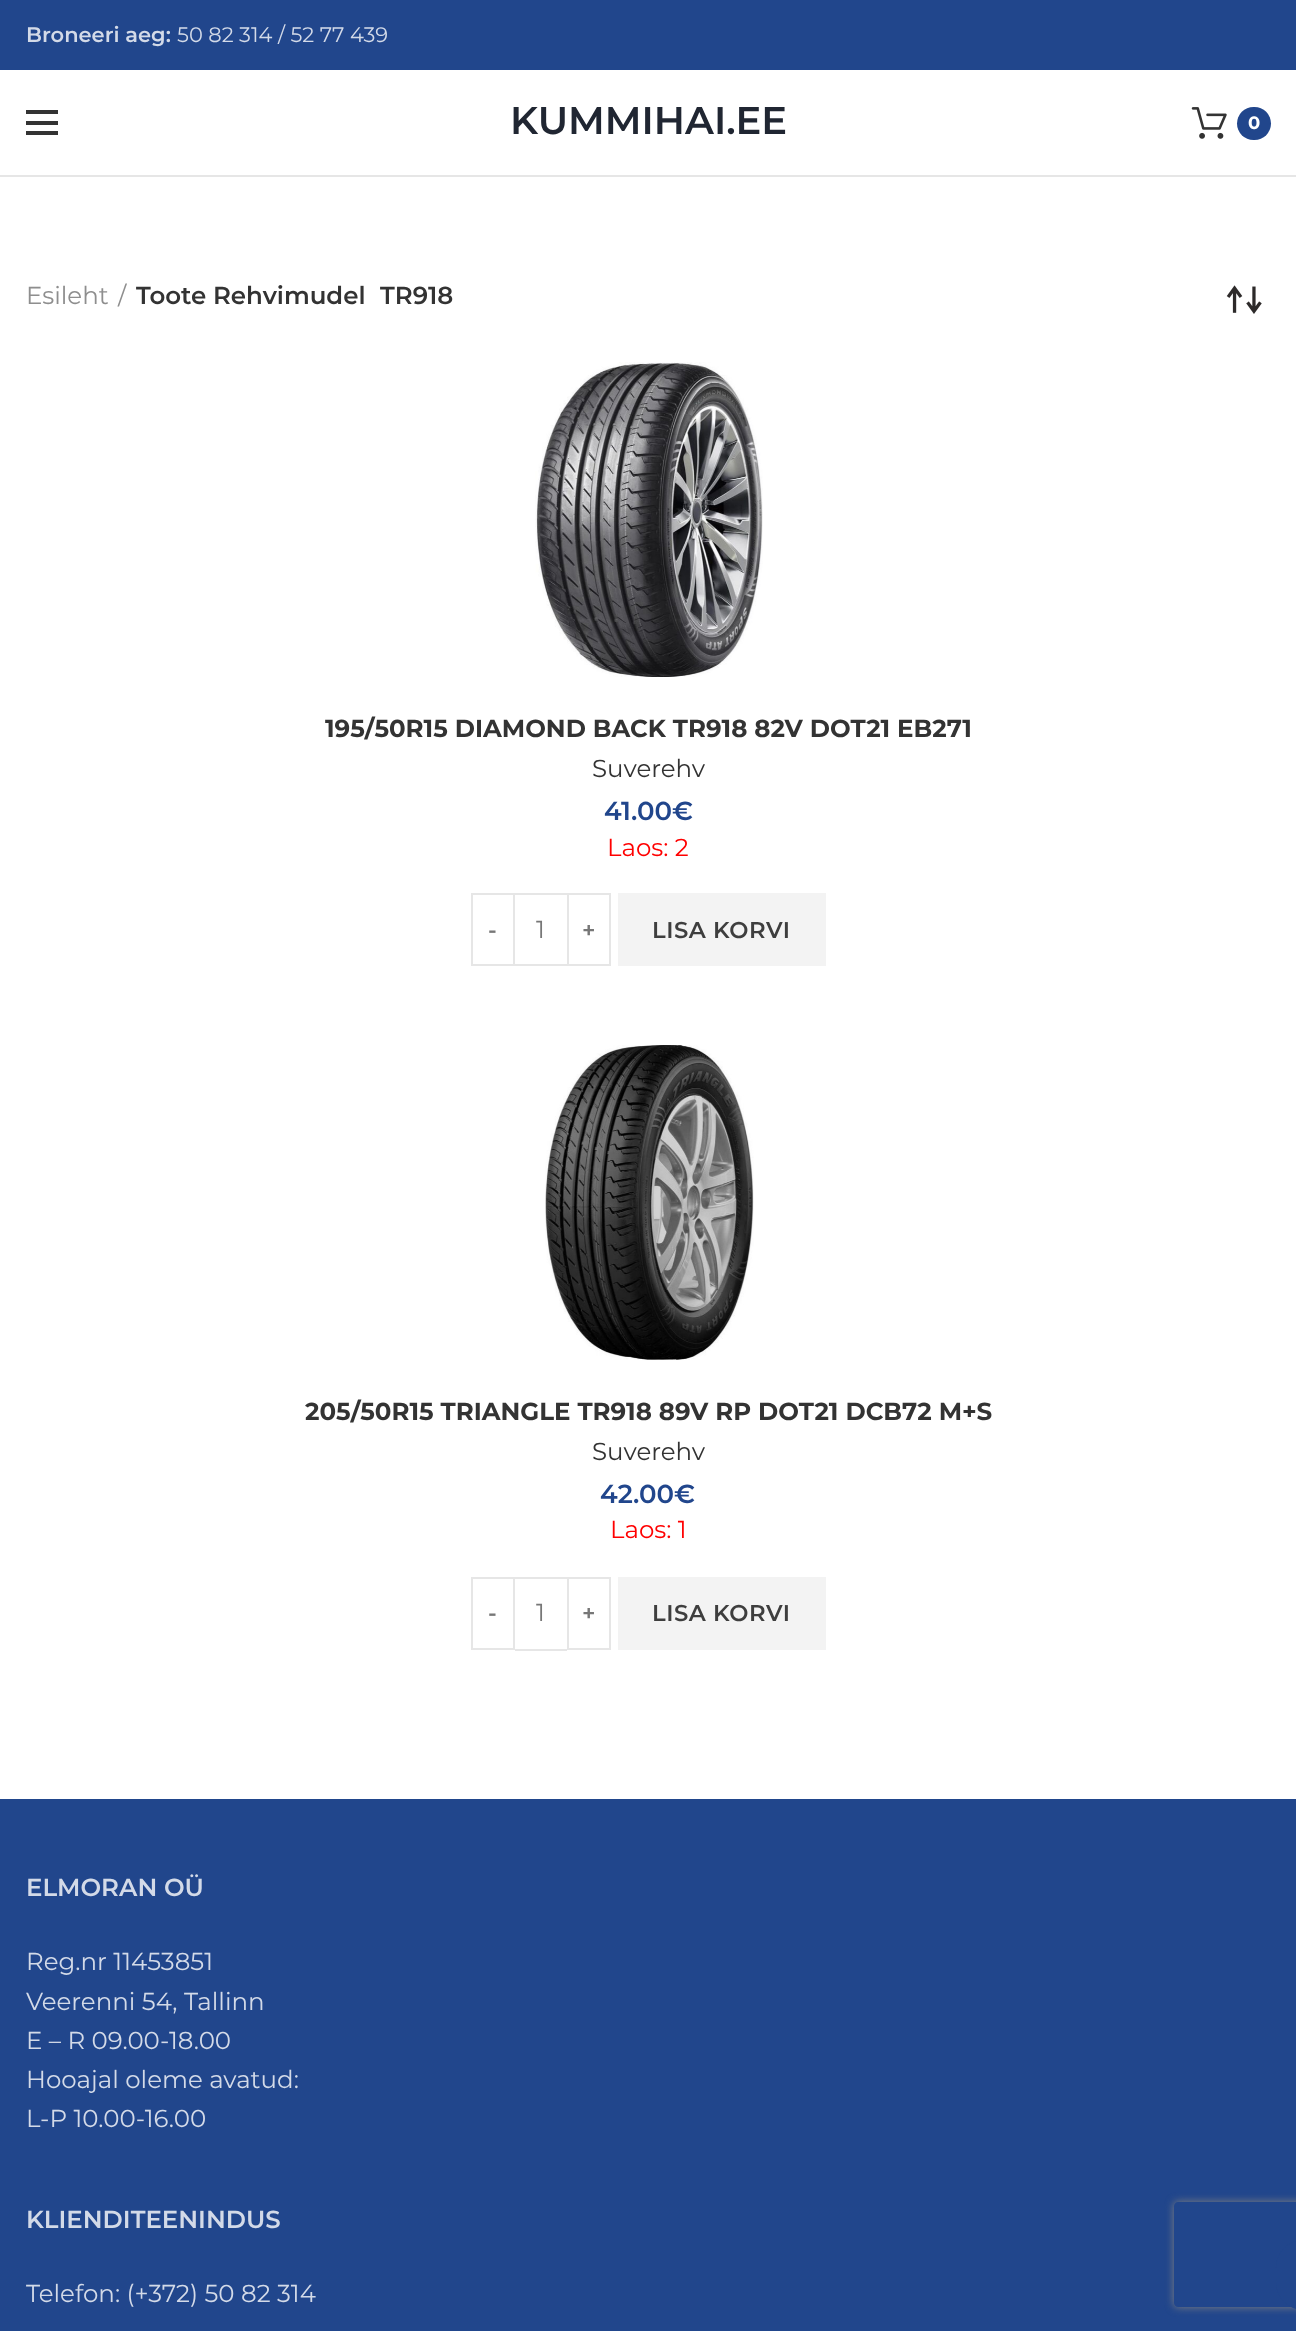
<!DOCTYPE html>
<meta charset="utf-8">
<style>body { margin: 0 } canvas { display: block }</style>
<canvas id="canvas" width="1296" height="2331"></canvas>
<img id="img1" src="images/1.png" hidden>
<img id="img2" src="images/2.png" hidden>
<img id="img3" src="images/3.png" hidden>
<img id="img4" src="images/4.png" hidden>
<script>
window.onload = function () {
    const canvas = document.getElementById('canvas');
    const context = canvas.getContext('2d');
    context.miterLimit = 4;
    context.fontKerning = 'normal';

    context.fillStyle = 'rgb(255, 255, 255)';
    context.fillRect(0, 0, 1296, 2331);
    context.fillStyle = 'rgb(33, 70, 140)';
    context.fillRect(0, 0, 1296, 70);
    context.fillStyle = 'rgb(230, 230, 230)';
    context.fillRect(0, 175, 1296, 2);
    context.fillStyle = 'rgb(51, 51, 51)';
    context.fillRect(26, 121, 32, 4);
    context.fillRect(26, 110, 32, 4);
    context.fillRect(26, 131, 32, 4);
    context.drawImage(document.getElementById('img1'), 1191, 107, 36, 32);
    context.fillStyle = 'rgb(33, 70, 140)';
    context.beginPath();
    context.roundRect(1237, 107, 34, 33, 16.5);
    context.fill();
    context.drawImage(document.getElementById('img2'), 1226, 285, 36, 29);
    context.drawImage(document.getElementById('img3'), 535, 362, 228, 315);
    context.strokeStyle = 'rgb(230, 230, 230)';
    context.lineWidth = 2;
    context.strokeRect(472, 894, 42, 71);
    context.fillStyle = 'rgb(230, 230, 230)';
    context.fillRect(515, 893, 52, 2);
    context.fillRect(515, 964, 52, 2);
    context.strokeRect(568, 894, 42, 71);
    context.fillStyle = 'rgb(243, 243, 243)';
    context.fillRect(618, 893, 208, 73);
    context.drawImage(document.getElementById('img4'), 545, 1045, 209, 315);
    context.strokeRect(472, 1578, 42, 71);
    context.fillStyle = 'rgb(230, 230, 230)';
    context.fillRect(515, 1577, 52, 2);
    context.fillRect(515, 1649, 52, 2);
    context.strokeRect(568, 1578, 42, 71);
    context.fillStyle = 'rgb(243, 243, 243)';
    context.fillRect(618, 1577, 208, 73);
    context.fillStyle = 'rgb(33, 70, 140)';
    context.fillRect(0, 1799, 1296, 532);
    context.save();
    context.beginPath();
    context.moveTo(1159, 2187);
    context.lineTo(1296, 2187);
    context.lineTo(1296, 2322);
    context.lineTo(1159, 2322);
    context.closePath();
    context.moveTo(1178, 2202);
    context.lineTo(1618, 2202);
    context.bezierCurveTo(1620, 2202, 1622, 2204, 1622, 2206);
    context.lineTo(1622, 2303);
    context.bezierCurveTo(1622, 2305, 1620, 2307, 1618, 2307);
    context.lineTo(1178, 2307);
    context.bezierCurveTo(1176, 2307, 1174, 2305, 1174, 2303);
    context.lineTo(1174, 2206);
    context.bezierCurveTo(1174, 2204, 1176, 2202, 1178, 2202);
    context.closePath();
    context.clip('evenodd');
    context.fillStyle = 'rgb(128, 128, 128)';
    context.filter = 'blur(4.5px)';
    context.beginPath();
    context.roundRect(1174, 2202, 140, 105, 4);
    context.fill();
    context.filter = 'none';
    context.restore();
    context.beginPath();
    context.roundRect(1276, 2240, 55, 70, 35);
    context.fill();
    context.font = '600 21px Montserrat';
    context.fillStyle = 'rgb(211, 218, 232)';
    context.fillText('Broneeri aeg:', 26, 42);
    context.font = '21px Montserrat';
    context.fillText('50 82 314 / 52 77 439', 177, 42);
    context.font = '600 38.5px Montserrat';
    context.fillStyle = 'rgb(32, 38, 50)';
    context.fillText('KUMMIHAI.EE', 510, 134);
    context.font = 'bold 18px Montserrat';
    context.fillStyle = 'rgb(255, 255, 255)';
    context.fillText('0', 1248, 129);
    context.font = '24.5px Montserrat';
    context.fillStyle = 'rgb(142, 142, 142)';
    context.fillText('Esileht', 26, 304);
    context.fillText('/', 118, 304);
    context.font = '600 24.5px Montserrat';
    context.fillStyle = 'rgb(51, 51, 51)';
    context.fillText('Toote Rehvimudel', 136, 304);
    context.fillText('TR918', 380, 304);
    context.font = 'bold 24.5px Montserrat';
    context.fillText('195/50R15 DIAMOND BACK TR918 82V DOT21 EB271', 325, 737);
    context.font = '24.5px Montserrat';
    context.fillText('Suverehv', 592, 777);
    context.font = '600 26px Montserrat';
    context.fillStyle = 'rgb(33, 70, 140)';
    context.fillText('41.00€', 604, 820);
    context.font = '24.5px Montserrat';
    context.fillStyle = 'rgb(255, 0, 0)';
    context.fillText('Laos: 2', 607, 856);
    context.letterSpacing = '0.5px';
    context.font = '600 22.75px Montserrat';
    context.fillStyle = 'rgb(119, 119, 119)';
    context.fillText('-', 488, 938);
    context.letterSpacing = '0px';
    context.font = '24.5px Montserrat';
    context.fillText('1', 536, 938);
    context.letterSpacing = '0.5px';
    context.font = '600 22.75px Montserrat';
    context.fillText('+', 582, 938);
    context.fillStyle = 'rgb(62, 62, 62)';
    context.fillText('LISA KORVI', 652, 938);
    context.letterSpacing = '0px';
    context.font = 'bold 24.5px Montserrat';
    context.fillStyle = 'rgb(51, 51, 51)';
    context.fillText('205/50R15 TRIANGLE TR918 89V RP DOT21 DCB72 M+S', 305, 1420);
    context.font = '24.5px Montserrat';
    context.fillText('Suverehv', 592, 1460);
    context.font = '600 26px Montserrat';
    context.fillStyle = 'rgb(33, 70, 140)';
    context.fillText('42.00€', 600, 1503);
    context.font = '24.5px Montserrat';
    context.fillStyle = 'rgb(255, 0, 0)';
    context.fillText('Laos: 1', 610, 1538);
    context.letterSpacing = '0.5px';
    context.font = '600 22.75px Montserrat';
    context.fillStyle = 'rgb(119, 119, 119)';
    context.fillText('-', 488, 1621);
    context.letterSpacing = '0px';
    context.font = '24.5px Montserrat';
    context.fillText('1', 536, 1621);
    context.letterSpacing = '0.5px';
    context.font = '600 22.75px Montserrat';
    context.fillText('+', 582, 1621);
    context.fillStyle = 'rgb(62, 62, 62)';
    context.fillText('LISA KORVI', 652, 1621);
    context.letterSpacing = '0px';
    context.font = '600 24.5px Montserrat';
    context.fillStyle = 'rgb(211, 218, 232)';
    context.fillText('ELMORAN OÜ', 26, 1896);
    context.font = '24.5px Montserrat';
    context.fillText('Reg.nr 11453851', 26, 1970);
    context.fillText('Veerenni 54, Tallinn', 26, 2010);
    context.fillText('E – R 09.00-18.00', 26, 2049);
    context.fillText('Hooajal oleme avatud:', 26, 2088);
    context.fillText('L-P 10.00-16.00', 26, 2127);
    context.font = '600 24.5px Montserrat';
    context.fillText('KLIENDITEENINDUS', 26, 2228);
    context.font = '24.5px Montserrat';
    context.fillText('Telefon: (+372) 50 82 314', 26, 2302);
};
</script>
